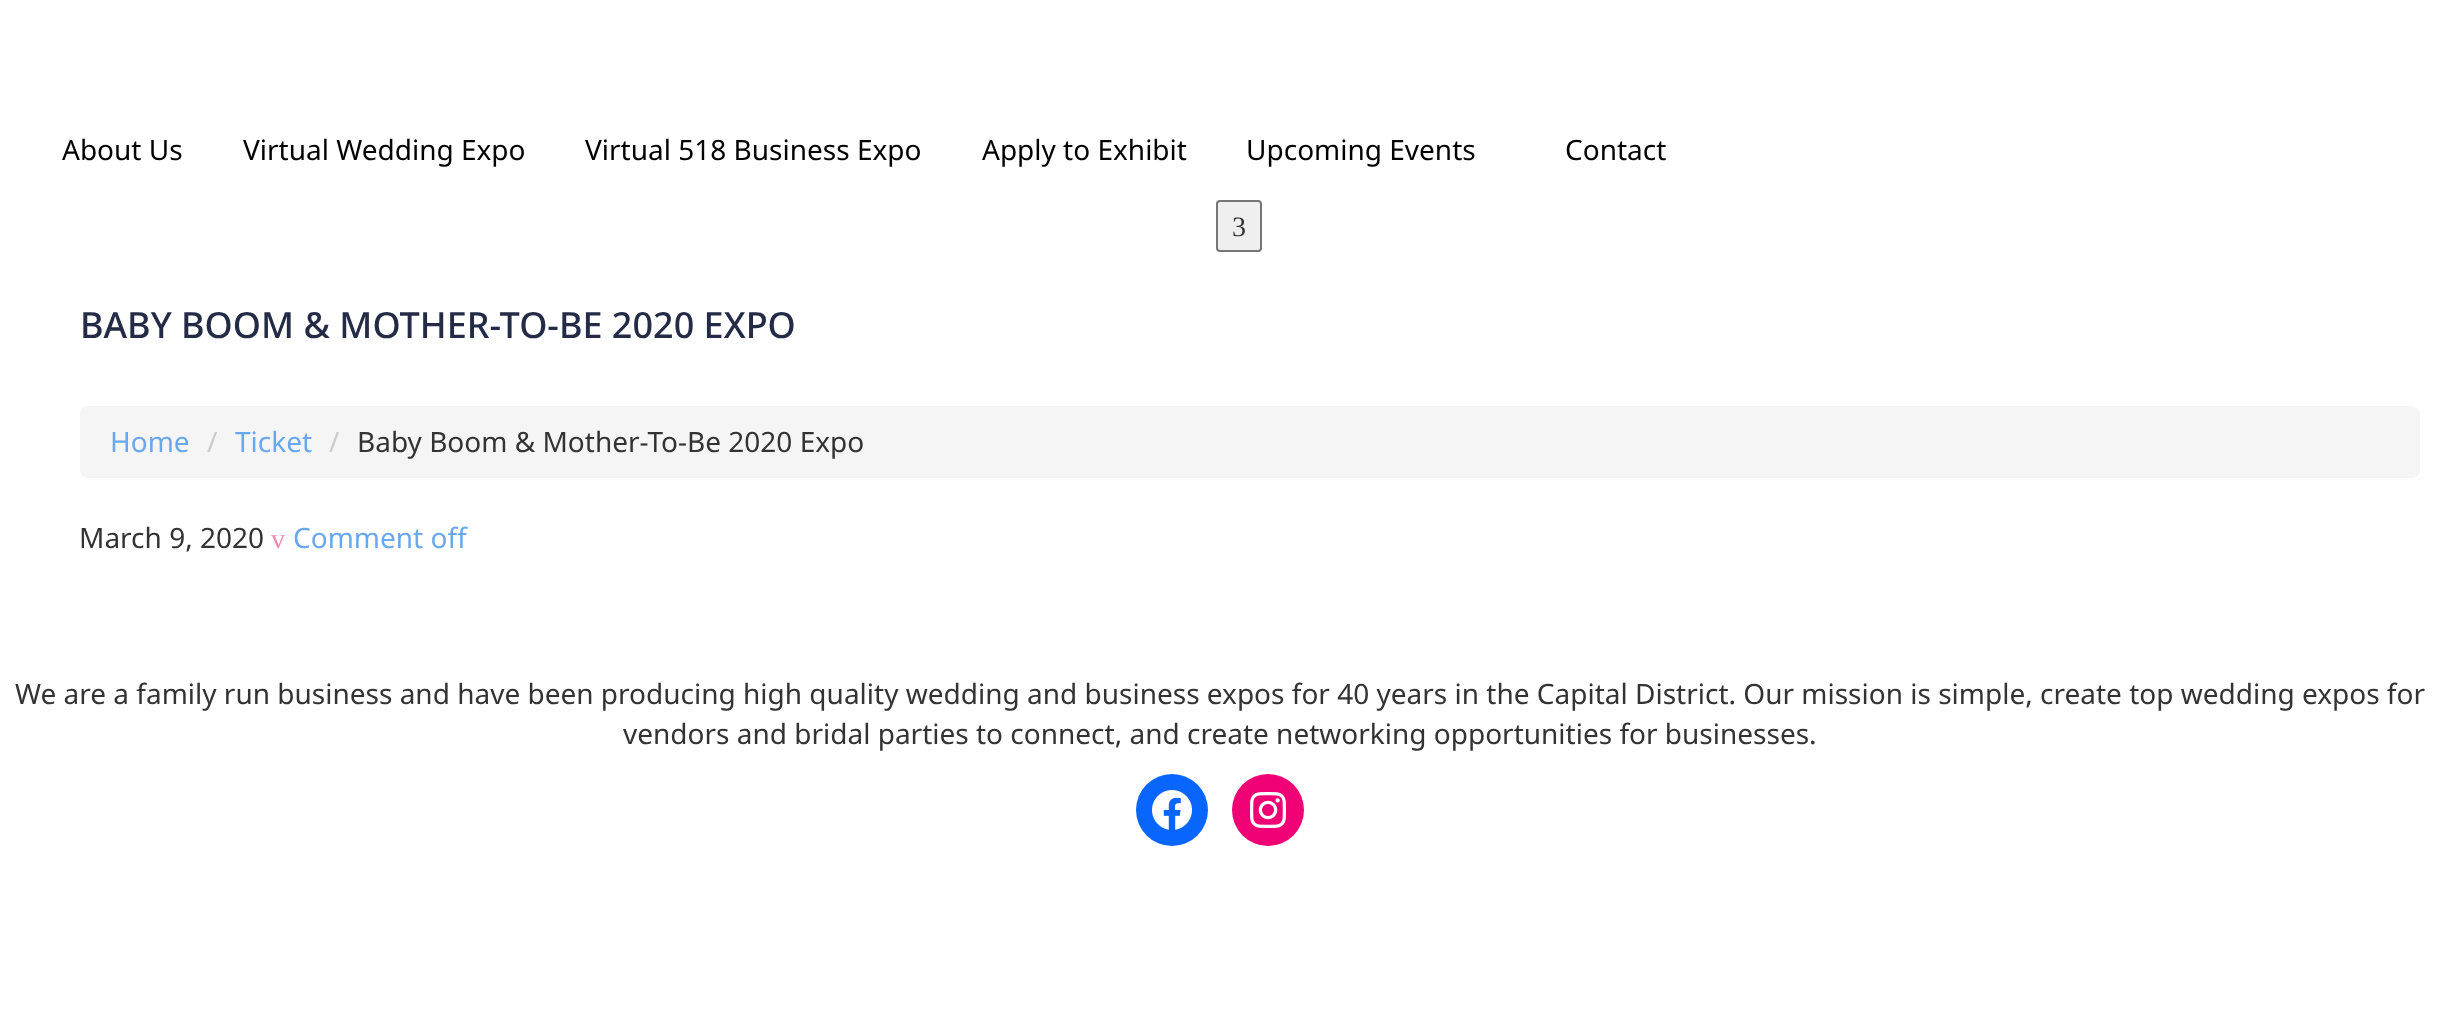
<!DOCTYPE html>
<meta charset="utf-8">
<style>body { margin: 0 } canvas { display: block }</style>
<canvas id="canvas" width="2440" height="1024"></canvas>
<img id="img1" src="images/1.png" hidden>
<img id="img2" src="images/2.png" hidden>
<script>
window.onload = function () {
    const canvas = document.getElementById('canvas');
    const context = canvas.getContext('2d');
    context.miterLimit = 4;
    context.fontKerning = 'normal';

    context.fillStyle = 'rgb(255, 255, 255)';
    context.fillRect(0, 0, 2440, 1024);
    context.fillStyle = 'rgb(239, 239, 239)';
    context.beginPath();
    context.roundRect(1217, 201, 44, 50, 3);
    context.fill();
    context.strokeStyle = 'rgb(118, 118, 118)';
    context.lineWidth = 2;
    context.stroke();
    context.fillStyle = 'rgb(245, 245, 245)';
    context.beginPath();
    context.roundRect(80, 406, 2340, 72, 8);
    context.fill();
    context.fillStyle = 'rgb(8, 102, 255)';
    context.beginPath();
    context.arc(1172, 810, 36, 0, 2 * Math.PI);
    context.fill();
    context.drawImage(document.getElementById('img1'), 1152, 790, 40, 40);
    context.fillStyle = 'rgb(240, 0, 117)';
    context.beginPath();
    context.arc(1268, 810, 36, 0, 2 * Math.PI);
    context.fill();
    context.drawImage(document.getElementById('img2'), 1250, 792, 36, 36);
    context.font = '28px Noto Sans';
    context.fillStyle = 'rgb(0, 0, 0)';
    context.fillText('About Us', 62, 160);
    context.fillText('Virtual Wedding Expo', 243, 160);
    context.fillText('Virtual 518 Business Expo', 585, 160);
    context.fillText('Apply to Exhibit', 982, 160);
    context.fillText('Upcoming Events', 1246, 160);
    context.font = '28px Liberation Serif';
    context.fillStyle = 'rgb(51, 51, 51)';
    context.fillText('3', 1232, 236);
    context.font = '28px Noto Sans';
    context.fillStyle = 'rgb(0, 0, 0)';
    context.fillText('Contact', 1565, 160);
    context.font = '500 36px Noto Sans';
    context.fillStyle = 'rgb(36, 43, 70)';
    context.fillText('BABY BOOM & MOTHER-TO-BE 2020 EXPO', 80, 338);
    context.font = '28px Noto Sans';
    context.fillStyle = 'rgb(105, 168, 239)';
    context.fillText('Home', 110, 452);
    context.fillStyle = 'rgb(204, 204, 204)';
    context.fillText('/', 207, 452);
    context.fillStyle = 'rgb(105, 168, 239)';
    context.fillText('Ticket', 235, 452);
    context.fillStyle = 'rgb(204, 204, 204)';
    context.fillText('/', 329, 452);
    context.fillStyle = 'rgb(51, 51, 51)';
    context.fillText('Baby Boom & Mother-To-Be 2020 Expo', 357, 452);
    context.fillText('March 9, 2020', 79, 548);
    context.font = '28px Liberation Serif';
    context.fillStyle = 'rgb(244, 134, 171)';
    context.fillText('v', 271, 548);
    context.font = '28px Noto Sans';
    context.fillStyle = 'rgb(105, 168, 239)';
    context.fillText('Comment off', 293, 548);
    context.fillStyle = 'rgb(51, 51, 51)';
    context.fillText('We are a family run business and have been producing high quality wedding and business expos for 40 years in the Capital District. Our mission is simple, create top wedding expos for', 15, 704);
    context.fillText('vendors and bridal parties to connect, and create networking opportunities for businesses.', 623, 744);
};
</script>
